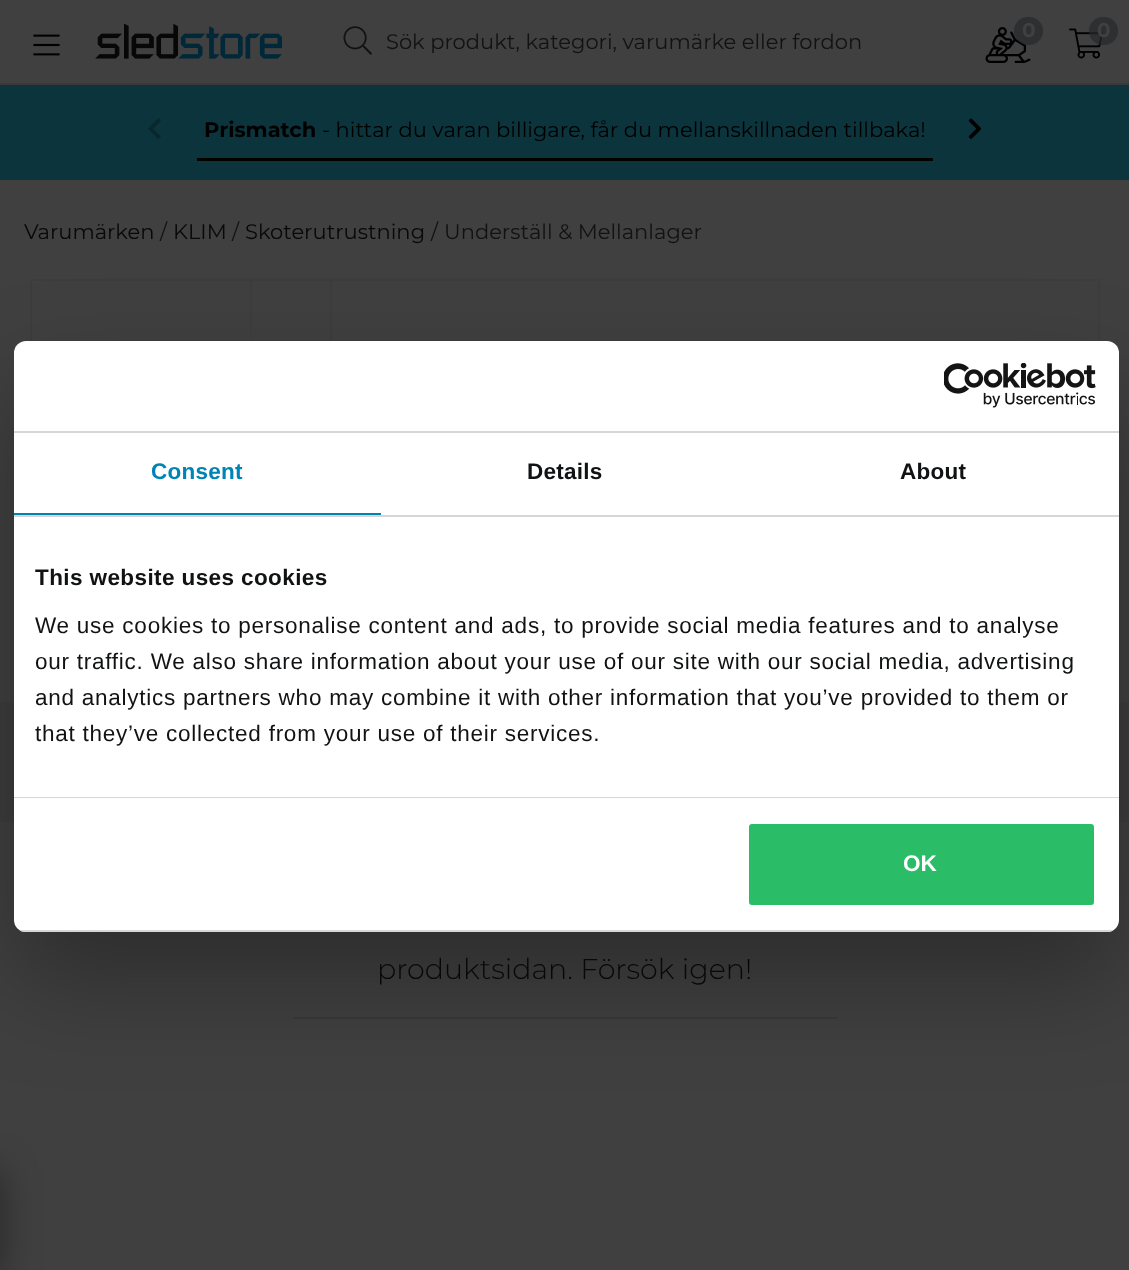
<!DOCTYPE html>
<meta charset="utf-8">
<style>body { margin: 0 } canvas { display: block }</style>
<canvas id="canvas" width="1129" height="1270"></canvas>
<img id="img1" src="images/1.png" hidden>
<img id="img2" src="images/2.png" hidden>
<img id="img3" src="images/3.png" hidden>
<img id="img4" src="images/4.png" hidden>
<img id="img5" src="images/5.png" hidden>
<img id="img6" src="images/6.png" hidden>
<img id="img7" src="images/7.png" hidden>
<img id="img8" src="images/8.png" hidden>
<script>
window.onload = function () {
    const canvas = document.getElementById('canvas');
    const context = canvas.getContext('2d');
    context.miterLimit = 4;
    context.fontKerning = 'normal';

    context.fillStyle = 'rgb(64, 64, 64)';
    context.fillRect(0, 0, 1129, 1270);
    context.fillStyle = 'rgb(57, 57, 57)';
    context.fillRect(0, 83, 1129, 2);
    context.drawImage(document.getElementById('img1'), 95, 23, 187, 36);
    context.drawImage(document.getElementById('img2'), 985, 27, 46, 36);
    context.fillStyle = 'rgba(38, 40, 42, 0.7)';
    context.beginPath();
    context.roundRect(1014, 17, 29, 28, 14);
    context.fill();
    context.drawImage(document.getElementById('img3'), 1069, 28, 34, 31);
    context.beginPath();
    context.roundRect(1089, 17, 29, 28, 14);
    context.fill();
    context.drawImage(document.getElementById('img4'), 33, 34, 27, 22);
    context.drawImage(document.getElementById('img5'), 343, 26, 29, 29);
    context.fillStyle = 'rgba(0, 0, 0, 0.4)';
    context.filter = 'blur(19px)';
    context.beginPath();
    context.rect(-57, 1170, 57, 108);
    context.fill();
    context.filter = 'none';
    context.fillStyle = 'rgb(12, 52, 61)';
    context.fillRect(0, 85, 1129, 95);
    context.drawImage(document.getElementById('img6'), 148, 118, 13, 21);
    context.fillStyle = 'rgb(0, 0, 0)';
    context.fillRect(197, 158, 736, 3);
    context.drawImage(document.getElementById('img7'), 968, 118, 14, 21);
    context.strokeStyle = 'rgb(61, 61, 61)';
    context.lineWidth = 2;
    context.strokeRect(31, 280, 220, 231);
    context.fillStyle = 'rgb(64, 64, 64)';
    context.beginPath();
    context.roundRect(32, 326, 219, 138, 5);
    context.fill();
    context.fillStyle = 'rgb(61, 61, 61)';
    context.fillRect(252, 279, 848, 2);
    context.fillRect(330, 279, 2, 62);
    context.fillRect(1098, 279, 2, 62);
    context.fillRect(0, 702, 1129, 120);
    context.fillStyle = 'rgb(56, 56, 56)';
    context.fillRect(293, 1017, 544, 2);
    context.fillStyle = 'rgba(0, 0, 0, 0.3)';
    context.filter = 'blur(51px)';
    context.beginPath();
    context.roundRect(14, 389, 1105, 591, 12);
    context.fill();
    context.filter = 'none';
    context.fillStyle = 'rgb(255, 255, 255)';
    context.beginPath();
    context.roundRect(14, 341, 1105, 591, 12);
    context.fill();
    context.fillStyle = 'rgb(214, 214, 214)';
    context.fillRect(14, 431, 1105, 2);
    context.drawImage(document.getElementById('img8'), 944, 363, 152, 45);
    context.fillRect(14, 515, 1105, 2);
    context.fillStyle = 'rgb(0, 132, 180)';
    context.fillRect(14, 513, 367, 2);
    context.fillStyle = 'rgb(214, 214, 214)';
    context.fillRect(14, 797, 1105, 1);
    context.save();
    context.beginPath();
    context.roundRect(14, 341, 1105, 591, 12);
    context.clip();
    context.fillRect(14, 930, 1105, 2);
    context.restore();
    context.fillStyle = 'rgb(43, 188, 104)';
    context.beginPath();
    context.roundRect(747.5, 822.5, 348, 84, 4.5);
    context.fill();
    context.strokeStyle = 'rgb(255, 255, 255)';
    context.lineWidth = 3;
    context.stroke();
    context.font = 'bold 20px Montserrat';
    context.fillStyle = 'rgb(64, 64, 64)';
    context.fillText('0', 1022, 37);
    context.fillText('0', 1097, 37);
    context.font = '21px Montserrat';
    context.fillStyle = 'rgb(17, 18, 19)';
    context.fillText('Sök produkt, kategori, varumärke eller fordon', 386, 49);
    context.font = 'bold 21px Montserrat';
    context.fillStyle = 'rgb(0, 0, 0)';
    context.fillText('Prismatch', 204, 137);
    context.font = '21px Montserrat';
    context.fillText('- hittar du varan billigare, får du mellanskillnaden tillbaka!', 322, 137);
    context.fillStyle = 'rgb(8, 8, 9)';
    context.fillText('Varumärken', 24, 239);
    context.fillStyle = 'rgb(17, 18, 19)';
    context.fillText('/', 160, 239);
    context.fillStyle = 'rgb(8, 8, 9)';
    context.fillText('KLIM', 173, 239);
    context.fillStyle = 'rgb(17, 18, 19)';
    context.fillText('/', 232, 239);
    context.fillStyle = 'rgb(8, 8, 9)';
    context.fillText('Skoterutrustning', 245, 239);
    context.fillStyle = 'rgb(17, 18, 19)';
    context.fillText('/', 431, 239);
    context.fillText('Underställ & Mellanlager', 444, 239);
    context.font = '300 28.5px Montserrat';
    context.fillStyle = 'rgb(8, 8, 9)';
    context.fillText('produktsidan. Försök igen!', 377, 979);
    context.letterSpacing = '0.25px';
    context.font = 'bold 22.5px Liberation Sans';
    context.fillStyle = 'rgb(0, 132, 180)';
    context.fillText('Consent', 151, 479);
    context.fillStyle = 'rgb(17, 18, 19)';
    context.fillText('Details', 527, 479);
    context.fillText('About', 900, 479);
    context.letterSpacing = '0.4px';
    context.fillText('This website uses cookies', 35, 585);
    context.letterSpacing = '0.75px';
    context.font = '22.5px Liberation Sans';
    context.fillText('We use cookies to personalise content and ads, to provide social media features and to analyse', 35, 633);
    context.fillText('our traffic. We also share information about your use of our site with our social media, advertising', 35, 669);
    context.fillText('and analytics partners who may combine it with other information that you’ve provided to them or', 35, 705);
    context.fillText('that they’ve collected from your use of their services.', 35, 741);
    context.letterSpacing = '0px';
    context.font = 'bold 22.5px Liberation Sans';
    context.fillStyle = 'rgb(255, 255, 255)';
    context.fillText('OK', 903, 871);
};
</script>
